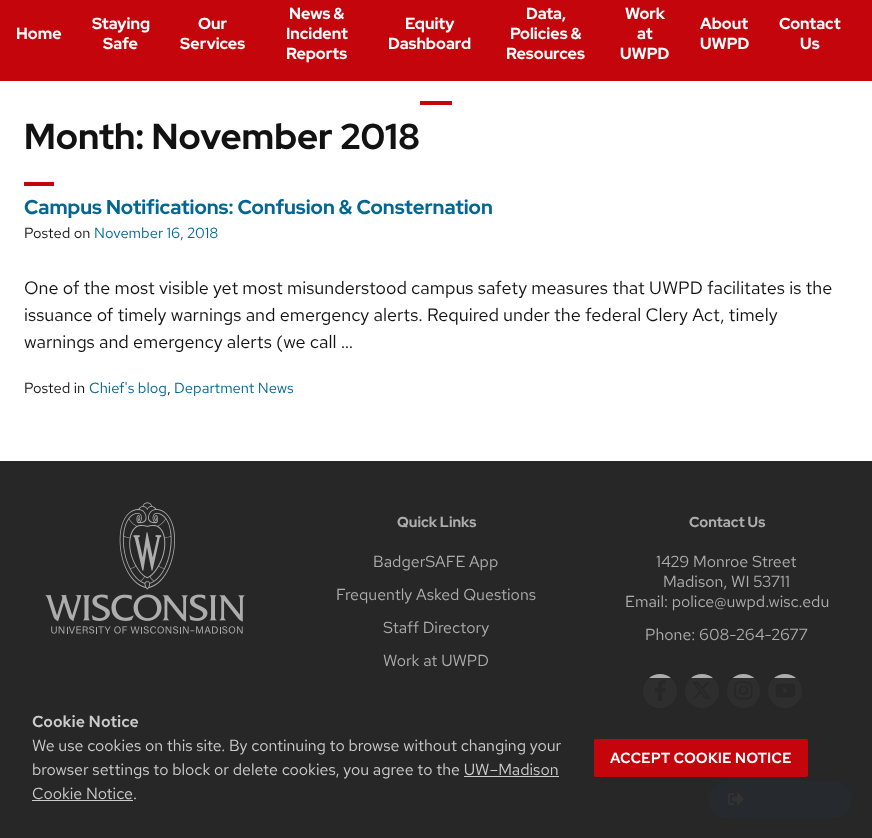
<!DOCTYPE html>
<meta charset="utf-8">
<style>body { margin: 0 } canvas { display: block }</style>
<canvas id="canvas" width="872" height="838"></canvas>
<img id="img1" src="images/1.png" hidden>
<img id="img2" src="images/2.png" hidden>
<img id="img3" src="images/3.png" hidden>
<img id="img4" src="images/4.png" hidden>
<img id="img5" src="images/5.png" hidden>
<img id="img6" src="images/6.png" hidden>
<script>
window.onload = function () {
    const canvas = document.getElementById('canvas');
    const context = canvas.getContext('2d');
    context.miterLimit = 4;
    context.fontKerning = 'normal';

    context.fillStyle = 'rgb(255, 255, 255)';
    context.fillRect(0, 0, 872, 838);
    context.fillStyle = 'rgb(197, 5, 12)';
    context.fillRect(0, 0, 872, 81);
    context.fillRect(420, 101, 32, 4);
    context.fillRect(24, 182, 30, 4);
    context.fillStyle = 'rgb(40, 39, 40)';
    context.fillRect(0, 461, 872, 377);
    context.drawImage(document.getElementById('img1'), 45, 502, 200, 132);
    context.fillStyle = 'rgb(173, 173, 173)';
    context.beginPath();
    context.arc(660, 691, 17, 0, 2 * Math.PI);
    context.fill();
    context.drawImage(document.getElementById('img2'), 654, 680, 12, 21);
    context.beginPath();
    context.arc(702, 691, 17, 0, 2 * Math.PI);
    context.fill();
    context.drawImage(document.getElementById('img3'), 692, 681, 19, 18);
    context.beginPath();
    context.roundRect(727, 674, 33, 34, 16.5);
    context.fill();
    context.drawImage(document.getElementById('img4'), 734, 681, 19, 19);
    context.beginPath();
    context.arc(785, 691, 17, 0, 2 * Math.PI);
    context.fill();
    context.drawImage(document.getElementById('img5'), 775, 683, 20, 15);
    context.fillStyle = 'rgb(3, 103, 150)';
    context.beginPath();
    context.roundRect(708, 781, 144, 37, 18.5);
    context.fill();
    context.drawImage(document.getElementById('img6'), 728, 793, 16, 12);
    context.fillStyle = 'rgba(40, 39, 40, 0.95)';
    context.fillRect(643, 678, 209, 140);
    context.fillStyle = 'rgb(204, 204, 204)';
    context.fillRect(464, 776, 95, 1);
    context.fillRect(32, 800, 101, 1);
    context.fillStyle = 'rgb(197, 5, 12)';
    context.beginPath();
    context.roundRect(594, 739, 214, 38, 2);
    context.fill();
    context.font = 'bold 16px Red Hat Display';
    context.fillStyle = 'rgb(255, 255, 255)';
    context.fillText('Home', 16, 39);
    context.fillText('Staying', 92, 29);
    context.fillText('Safe', 103, 49);
    context.fillText('Our', 198, 29);
    context.fillText('Services', 180, 49);
    context.fillText('News &', 289, 19);
    context.fillText('Incident', 286, 39);
    context.fillText('Reports', 286, 59);
    context.fillText('Equity', 405, 29);
    context.fillText('Dashboard', 388, 49);
    context.fillText('Data,', 526, 19);
    context.fillText('Policies &', 510, 39);
    context.fillText('Resources', 506, 59);
    context.fillText('Work', 625, 19);
    context.fillText('at', 637, 39);
    context.fillText('UWPD', 620, 59);
    context.fillText('About', 700, 29);
    context.fillText('UWPD', 700, 49);
    context.fillText('Contact', 779, 29);
    context.fillText('Us', 800, 49);
    context.font = 'bold 36px Red Hat Display';
    context.fillStyle = 'rgb(18, 18, 18)';
    context.fillText('Month: November 2018', 24, 149);
    context.font = 'bold 20px Red Hat Display';
    context.fillStyle = 'rgb(3, 103, 150)';
    context.fillText('Campus Notifications: Confusion & Consternation', 24, 214);
    context.font = '14.75px Red Hat Text';
    context.fillStyle = 'rgb(18, 18, 18)';
    context.fillText('Posted on', 24, 238);
    context.fillStyle = 'rgb(3, 103, 150)';
    context.fillText('November 16, 2018', 94, 238);
    context.font = '18px Red Hat Text';
    context.fillStyle = 'rgb(18, 18, 18)';
    context.fillText('One of the most visible yet most misunderstood campus safety measures that UWPD facilitates is the', 24, 294);
    context.fillText('issuance of timely warnings and emergency alerts. Required under the federal Clery Act, timely', 24, 321);
    context.fillText('warnings and emergency alerts (we call …', 24, 348);
    context.font = '14.75px Red Hat Text';
    context.fillText('Posted in', 24, 393);
    context.fillStyle = 'rgb(3, 103, 150)';
    context.fillText('Chief\'s blog', 89, 393);
    context.fillStyle = 'rgb(18, 18, 18)';
    context.fillText(',', 167, 393);
    context.fillStyle = 'rgb(3, 103, 150)';
    context.fillText('Department News', 174, 393);
    context.font = 'bold 14.5px Red Hat Display';
    context.fillStyle = 'rgb(173, 173, 173)';
    context.fillText('Quick Links', 397, 527);
    context.font = '16px Red Hat Text';
    context.fillText('BadgerSAFE App', 373, 567);
    context.fillText('Frequently Asked Questions', 336, 600);
    context.fillText('Staff Directory', 383, 633);
    context.fillText('Work at UWPD', 383, 666);
    context.font = 'bold 14.5px Red Hat Display';
    context.fillText('Contact Us', 689, 527);
    context.font = '16px Red Hat Text';
    context.fillText('1429 Monroe Street', 656, 567);
    context.fillText('Madison, WI 53711', 663, 587);
    context.fillText('Email: police@uwpd.wisc.edu', 625, 607);
    context.fillText('Phone: 608-264-2677', 645, 640);
    context.font = '600 16px Red Hat Text';
    context.fillStyle = 'rgb(204, 204, 204)';
    context.fillText('Cookie Notice', 32, 727);
    context.font = '16px Red Hat Text';
    context.fillText('We use cookies on this site. By continuing to browse without changing your', 32, 751);
    context.fillText('browser settings to block or delete cookies, you agree to the UW–Madison', 32, 775);
    context.fillText('Cookie Notice', 32, 799);
    context.fillText('.', 133, 799);
    context.font = '600 14.75px Red Hat Text';
    context.fillStyle = 'rgb(255, 255, 255)';
    context.fillText('ACCEPT COOKIE NOTICE', 610, 763);
};
</script>
